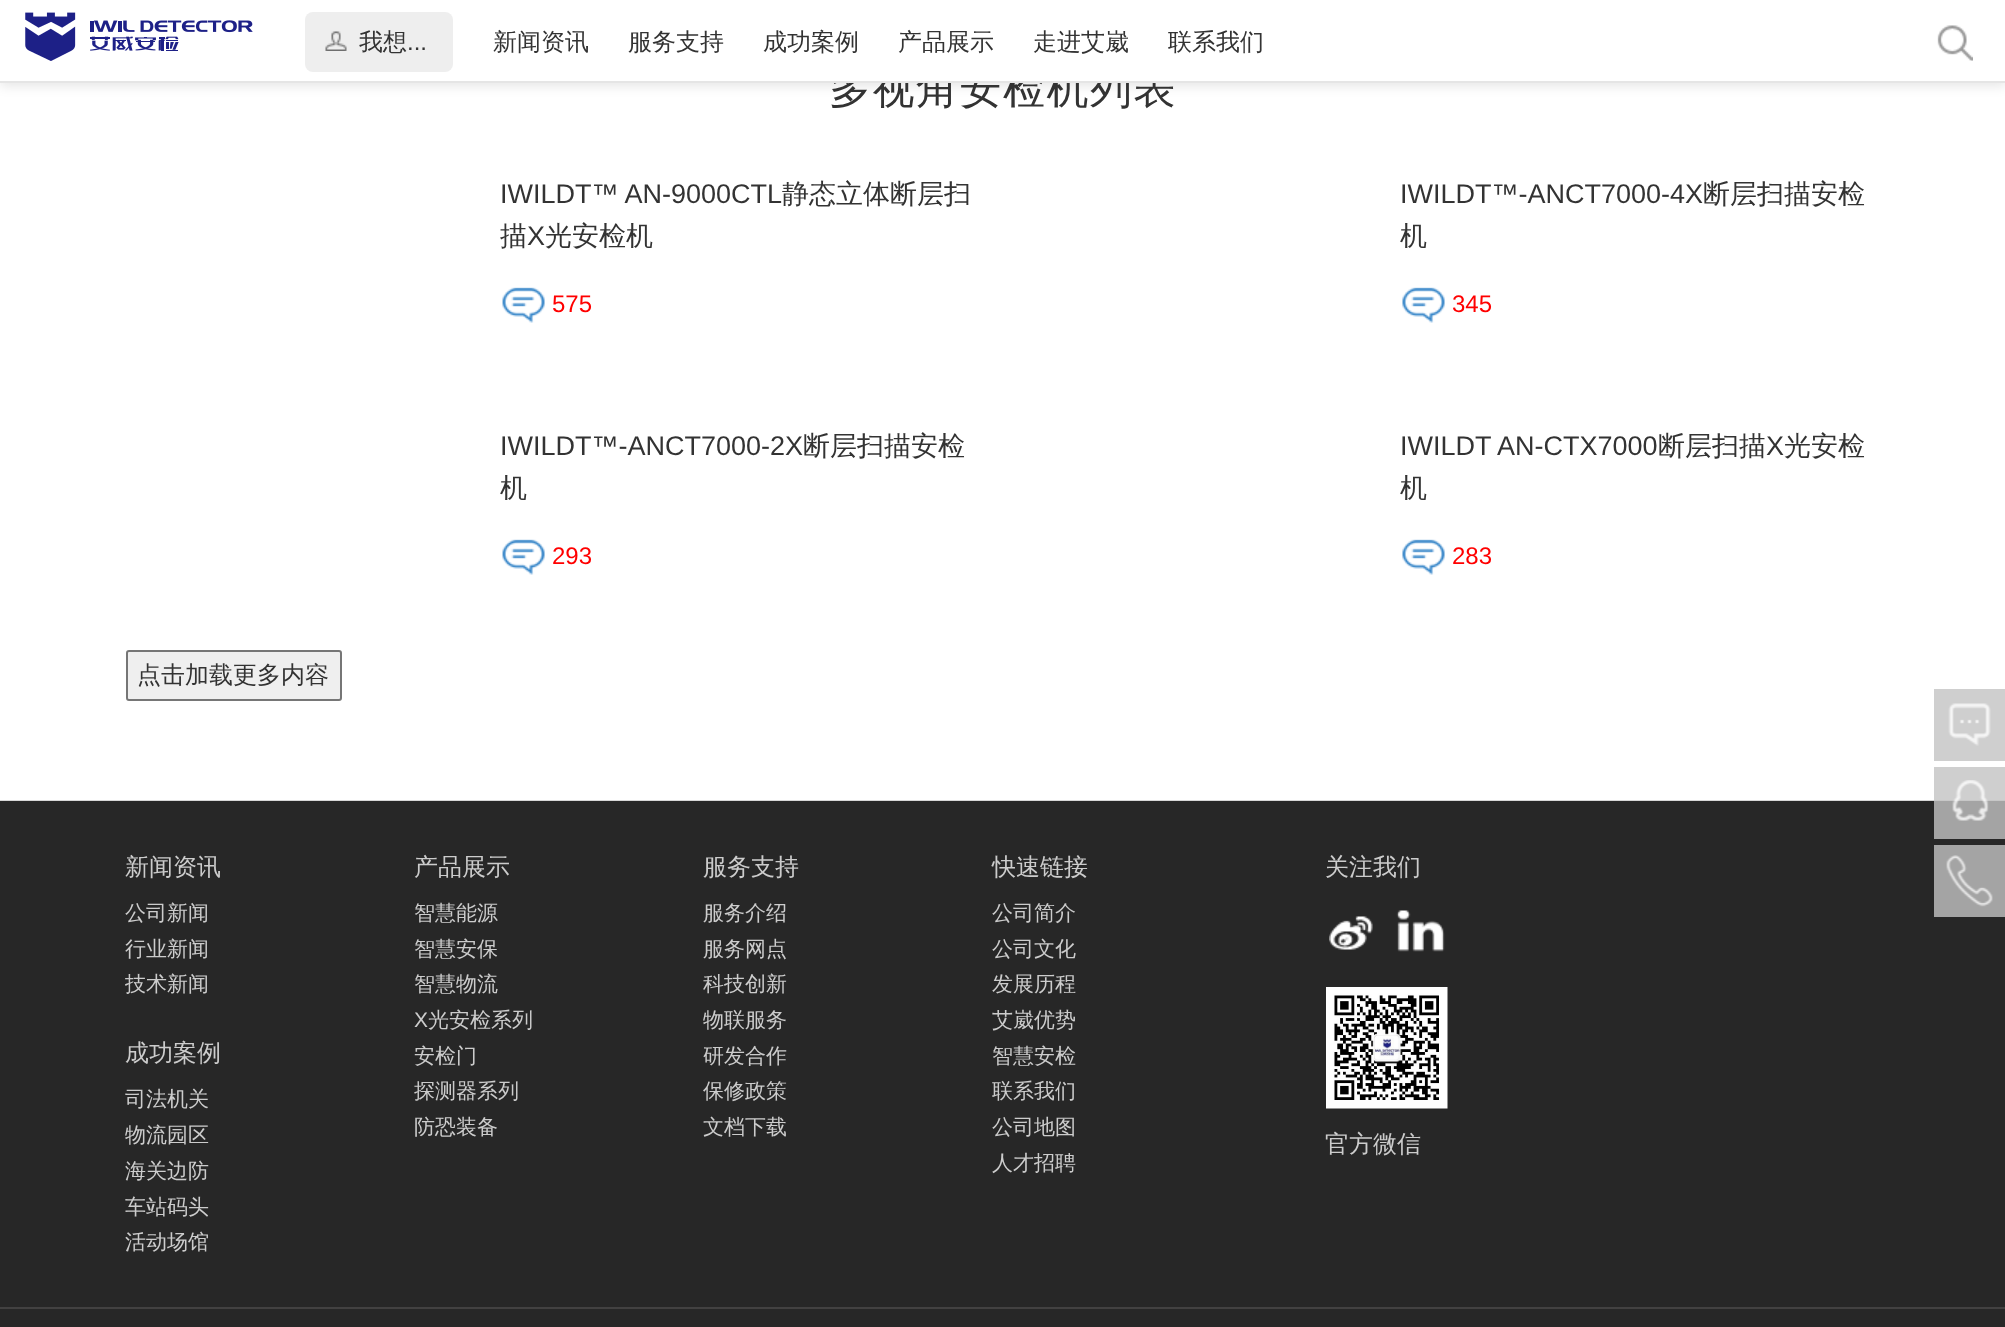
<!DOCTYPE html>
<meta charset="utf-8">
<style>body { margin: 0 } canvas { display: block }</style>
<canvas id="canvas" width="2005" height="1327"></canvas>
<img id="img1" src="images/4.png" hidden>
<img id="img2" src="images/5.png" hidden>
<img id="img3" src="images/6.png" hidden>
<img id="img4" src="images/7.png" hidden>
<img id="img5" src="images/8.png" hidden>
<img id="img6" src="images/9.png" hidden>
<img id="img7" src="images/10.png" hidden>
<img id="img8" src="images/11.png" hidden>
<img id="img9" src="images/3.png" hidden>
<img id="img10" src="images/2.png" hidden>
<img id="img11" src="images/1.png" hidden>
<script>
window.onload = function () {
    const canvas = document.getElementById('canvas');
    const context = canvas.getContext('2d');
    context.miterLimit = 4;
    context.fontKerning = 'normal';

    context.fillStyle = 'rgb(255, 255, 255)';
    context.fillRect(0, 0, 2005, 1327);
    context.fillStyle = 'rgb(207, 207, 207)';
    context.fillRect(1934, 767, 71, 33);
    context.fillStyle = 'rgba(0, 0, 0, 0.1)';
    context.filter = 'blur(6px)';
    context.beginPath();
    context.rect(0, 3, 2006, 83);
    context.fill();
    context.filter = 'none';
    context.fillStyle = 'rgb(215, 215, 215)';
    context.fillRect(0, 800, 1934, 1);
    context.fillStyle = 'rgb(199, 199, 199)';
    context.fillRect(1934, 800, 71, 1);
    context.drawImage(document.getElementById('img1'), 502, 287, 43, 36);
    context.drawImage(document.getElementById('img2'), 1402, 287, 43, 36);
    context.drawImage(document.getElementById('img1'), 502, 539, 43, 36);
    context.drawImage(document.getElementById('img2'), 1402, 539, 43, 36);
    context.fillStyle = 'rgb(239, 239, 239)';
    context.beginPath();
    context.roundRect(127, 651, 214, 49, 2);
    context.fill();
    context.strokeStyle = 'rgb(118, 118, 118)';
    context.lineWidth = 2;
    context.stroke();
    context.fillStyle = 'rgb(207, 207, 207)';
    context.fillRect(1934, 689, 71, 72);
    context.drawImage(document.getElementById('img3'), 1948, 703, 43, 43);
    context.fillStyle = 'rgb(39, 39, 39)';
    context.fillRect(0, 801, 2005, 526);
    context.fillStyle = 'rgb(164, 164, 164)';
    context.fillRect(1934, 801, 71, 38);
    context.drawImage(document.getElementById('img4'), 1952, 780, 37, 41);
    context.fillRect(1934, 845, 71, 72);
    context.drawImage(document.getElementById('img5'), 1946, 855, 47, 52);
    context.drawImage(document.getElementById('img6'), 1329, 916, 44, 34);
    context.drawImage(document.getElementById('img7'), 1396, 910, 49, 42);
    context.drawImage(document.getElementById('img8'), 1326, 987, 122, 122);
    context.fillStyle = 'rgb(66, 65, 65)';
    context.fillRect(0, 1307, 2005, 2);
    context.letterSpacing = '1.5px';
    context.font = '500 42px WenQuanYi Zen Hei';
    context.fillStyle = 'rgb(51, 51, 51)';
    context.fillText('多视角安检机列表', 829, 103);
    context.fillStyle = 'rgb(255, 255, 255)';
    context.fillRect(0, 0, 2005, 81);
    context.drawImage(document.getElementById('img9'), 1937, 25, 36, 36);
    context.letterSpacing = '0px';
    context.font = '500 24px WenQuanYi Zen Hei';
    context.fillStyle = 'rgb(51, 51, 51)';
    context.fillText('联系我们', 1168, 50);
    context.fillText('走进艾崴', 1033, 50);
    context.fillText('产品展示', 898, 50);
    context.fillText('成功案例', 763, 50);
    context.fillText('服务支持', 628, 50);
    context.fillText('新闻资讯', 493, 50);
    context.fillStyle = 'rgb(238, 238, 238)';
    context.beginPath();
    context.roundRect(305, 12, 148, 60, 8);
    context.fill();
    context.drawImage(document.getElementById('img10'), 325, 31, 22, 20);
    context.font = '24px Liberation Sans';
    context.fillStyle = 'rgb(51, 51, 51)';
    context.fillText('...', 407, 50);
    context.font = '500 24px WenQuanYi Zen Hei';
    context.fillText('我想', 359, 50);
    context.drawImage(document.getElementById('img11'), 25, 12, 228, 49);
    context.fillStyle = 'rgb(229, 229, 229)';
    context.fillRect(0, 81, 2005, 2);
    context.font = '27px Liberation Sans';
    context.fillStyle = 'rgb(51, 51, 51)';
    context.fillText('IWILDT™ AN-9000CTL', 500, 203);
    context.font = '500 27px WenQuanYi Zen Hei';
    context.fillText('静态立体断层扫', 782, 203);
    context.fillText('描', 500, 245);
    context.font = '27px Liberation Sans';
    context.fillText('X', 527, 245);
    context.font = '500 27px WenQuanYi Zen Hei';
    context.fillText('光安检机', 545, 245);
    context.font = '24px Liberation Sans';
    context.fillStyle = 'rgb(255, 0, 0)';
    context.fillText('575', 552, 312);
    context.font = '27px Liberation Sans';
    context.fillStyle = 'rgb(51, 51, 51)';
    context.fillText('IWILDT™-ANCT7000-4X', 1400, 203);
    context.font = '500 27px WenQuanYi Zen Hei';
    context.fillText('断层扫描安检', 1703, 203);
    context.fillText('机', 1400, 245);
    context.font = '24px Liberation Sans';
    context.fillStyle = 'rgb(255, 0, 0)';
    context.fillText('345', 1452, 312);
    context.font = '27px Liberation Sans';
    context.fillStyle = 'rgb(51, 51, 51)';
    context.fillText('IWILDT™-ANCT7000-2X', 500, 455);
    context.font = '500 27px WenQuanYi Zen Hei';
    context.fillText('断层扫描安检', 803, 455);
    context.fillText('机', 500, 497);
    context.font = '24px Liberation Sans';
    context.fillStyle = 'rgb(255, 0, 0)';
    context.fillText('293', 552, 564);
    context.font = '27px Liberation Sans';
    context.fillStyle = 'rgb(51, 51, 51)';
    context.fillText('IWILDT', 1400, 455);
    context.fillText('AN-CTX7000', 1497, 455);
    context.font = '500 27px WenQuanYi Zen Hei';
    context.fillText('断层扫描', 1658, 455);
    context.font = '27px Liberation Sans';
    context.fillText('X', 1766, 455);
    context.font = '500 27px WenQuanYi Zen Hei';
    context.fillText('光安检', 1784, 455);
    context.fillText('机', 1400, 497);
    context.font = '24px Liberation Sans';
    context.fillStyle = 'rgb(255, 0, 0)';
    context.fillText('283', 1452, 564);
    context.font = '500 24px WenQuanYi Zen Hei';
    context.fillStyle = 'rgb(51, 51, 51)';
    context.fillText('点击加载更多内容', 137, 683);
    context.fillStyle = 'rgb(204, 204, 204)';
    context.fillText('新闻资讯', 125, 875);
    context.font = '500 21px WenQuanYi Zen Hei';
    context.fillText('公司新闻', 125, 920);
    context.fillText('行业新闻', 125, 956);
    context.fillText('技术新闻', 125, 991);
    context.font = '500 24px WenQuanYi Zen Hei';
    context.fillText('成功案例', 125, 1061);
    context.font = '500 21px WenQuanYi Zen Hei';
    context.fillText('司法机关', 125, 1106);
    context.fillText('物流园区', 125, 1142);
    context.fillText('海关边防', 125, 1178);
    context.fillText('车站码头', 125, 1214);
    context.fillText('活动场馆', 125, 1249);
    context.font = '500 24px WenQuanYi Zen Hei';
    context.fillText('产品展示', 414, 875);
    context.font = '500 21px WenQuanYi Zen Hei';
    context.fillText('智慧能源', 414, 920);
    context.fillText('智慧安保', 414, 956);
    context.fillText('智慧物流', 414, 991);
    context.font = '21px Liberation Sans';
    context.fillText('X', 414, 1027);
    context.font = '500 21px WenQuanYi Zen Hei';
    context.fillText('光安检系列', 428, 1027);
    context.fillText('安检门', 414, 1063);
    context.fillText('探测器系列', 414, 1098);
    context.fillText('防恐装备', 414, 1134);
    context.font = '500 24px WenQuanYi Zen Hei';
    context.fillText('服务支持', 703, 875);
    context.font = '500 21px WenQuanYi Zen Hei';
    context.fillText('服务介绍', 703, 920);
    context.fillText('服务网点', 703, 956);
    context.fillText('科技创新', 703, 991);
    context.fillText('物联服务', 703, 1027);
    context.fillText('研发合作', 703, 1063);
    context.fillText('保修政策', 703, 1098);
    context.fillText('文档下载', 703, 1134);
    context.font = '500 24px WenQuanYi Zen Hei';
    context.fillText('快速链接', 992, 875);
    context.font = '500 21px WenQuanYi Zen Hei';
    context.fillText('公司简介', 992, 920);
    context.fillText('公司文化', 992, 956);
    context.fillText('发展历程', 992, 991);
    context.fillText('艾崴优势', 992, 1027);
    context.fillText('智慧安检', 992, 1063);
    context.fillText('联系我们', 992, 1098);
    context.fillText('公司地图', 992, 1134);
    context.fillText('人才招聘', 992, 1170);
    context.font = '500 24px WenQuanYi Zen Hei';
    context.fillText('关注我们', 1325, 875);
    context.fillText('官方微信', 1325, 1152);
};
</script>
